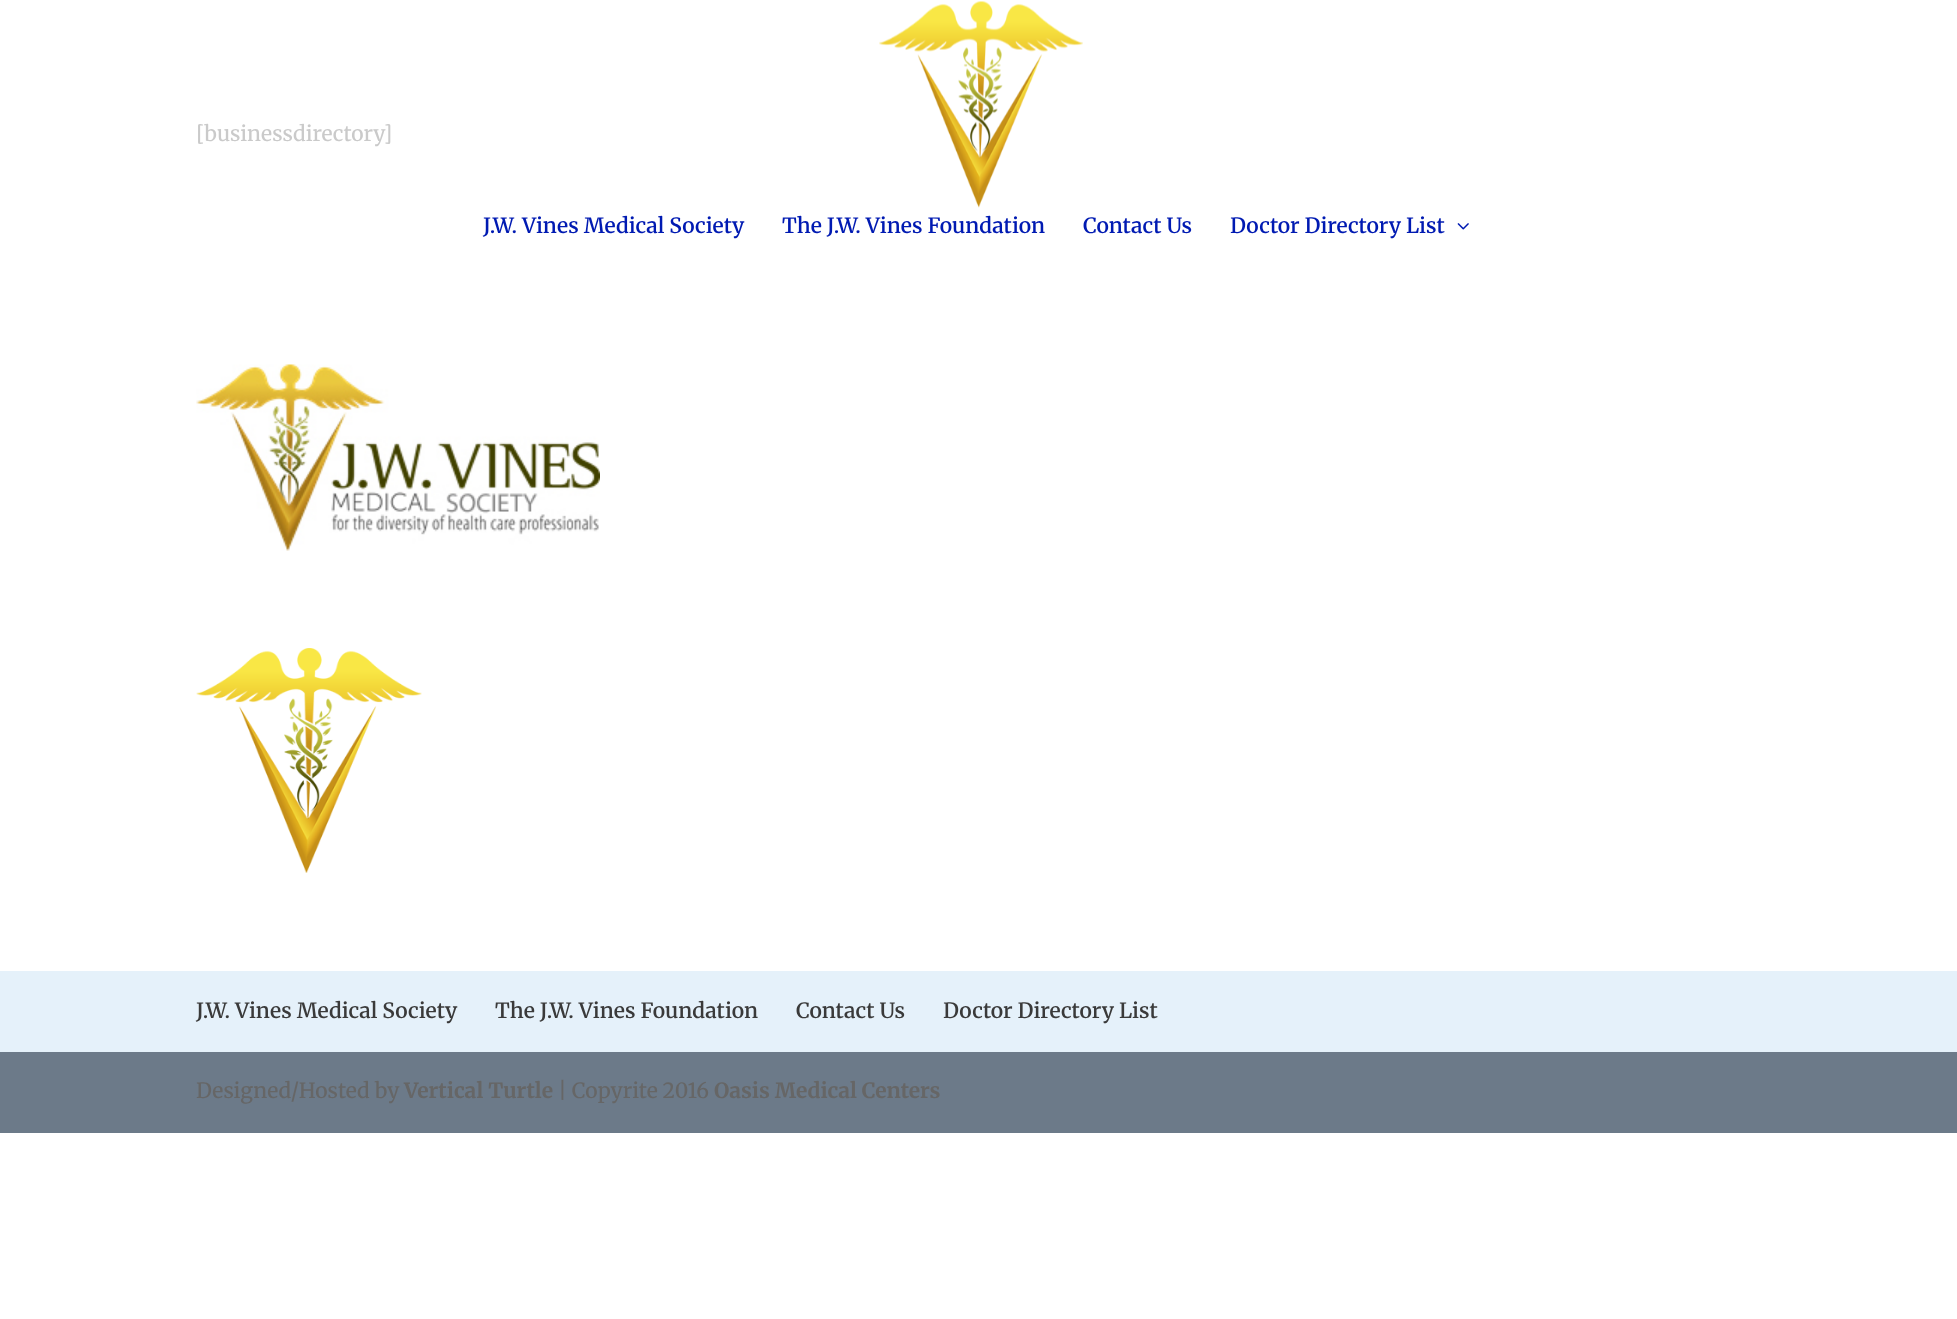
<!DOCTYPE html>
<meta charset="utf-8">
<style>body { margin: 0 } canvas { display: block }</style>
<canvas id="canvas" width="1957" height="1319"></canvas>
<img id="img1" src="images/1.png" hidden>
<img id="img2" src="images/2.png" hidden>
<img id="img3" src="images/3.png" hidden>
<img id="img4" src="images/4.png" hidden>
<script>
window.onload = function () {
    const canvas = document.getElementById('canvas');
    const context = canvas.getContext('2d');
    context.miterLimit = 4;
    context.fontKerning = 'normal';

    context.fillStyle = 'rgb(255, 255, 255)';
    context.fillRect(0, 0, 1957, 1319);
    context.drawImage(document.getElementById('img1'), 196, 364, 404, 187);
    context.drawImage(document.getElementById('img2'), 196, 648, 226, 225);
    context.fillStyle = 'rgb(229, 241, 250)';
    context.fillRect(0, 971, 1957, 81);
    context.fillStyle = 'rgb(108, 122, 137)';
    context.fillRect(0, 1052, 1957, 81);
    context.drawImage(document.getElementById('img3'), 879, 1, 204, 207);
    context.drawImage(document.getElementById('img4'), 1457, 223, 12, 7);
    context.font = '500 21px Merriweather';
    context.fillStyle = 'rgb(202, 202, 202)';
    context.fillText('[businessdirectory]', 196, 141);
    context.font = '600 21px Merriweather';
    context.fillStyle = 'rgb(58, 58, 58)';
    context.fillText('J.W. Vines Medical Society', 196, 1018);
    context.fillText('The J.W. Vines Foundation', 495, 1018);
    context.fillText('Contact Us', 796, 1018);
    context.fillText('Doctor Directory List', 943, 1018);
    context.font = '500 21px Merriweather';
    context.fillStyle = 'rgb(102, 102, 102)';
    context.fillText('Designed/Hosted by', 196, 1098);
    context.font = 'bold 21px Merriweather';
    context.fillText('Vertical Turtle', 404, 1098);
    context.font = '500 21px Merriweather';
    context.fillText('| Copyrite 2016', 558, 1098);
    context.font = 'bold 21px Merriweather';
    context.fillText('Oasis Medical Centers', 714, 1098);
    context.font = '600 21px Merriweather';
    context.fillStyle = 'rgb(0, 26, 178)';
    context.fillText('J.W. Vines Medical Society', 483, 233);
    context.fillText('The J.W. Vines Foundation', 782, 233);
    context.fillText('Contact Us', 1083, 233);
    context.fillText('Doctor Directory List', 1230, 233);
};
</script>
